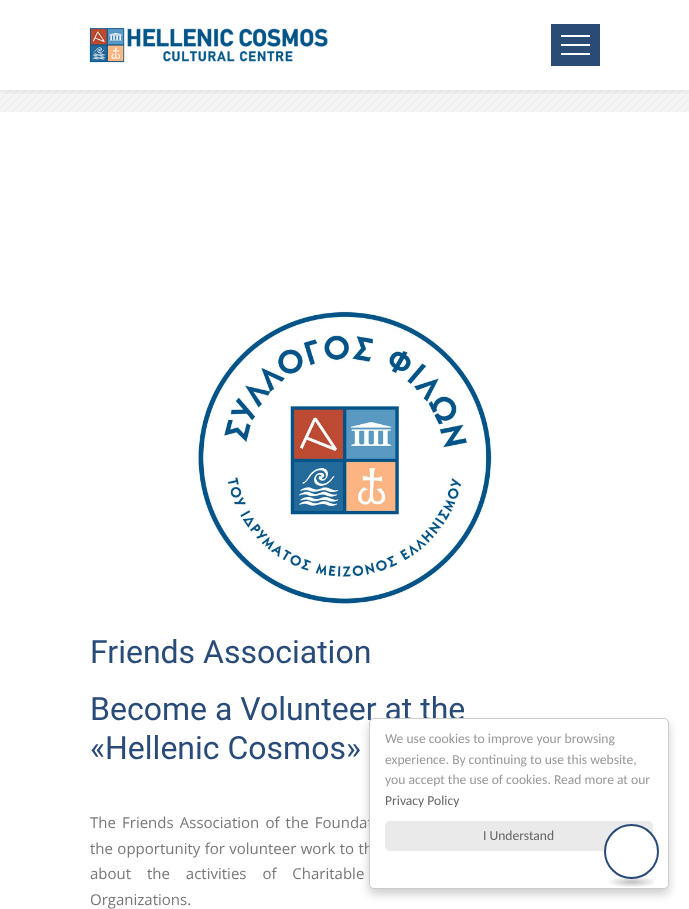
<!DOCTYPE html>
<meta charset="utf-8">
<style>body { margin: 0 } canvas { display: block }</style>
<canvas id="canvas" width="689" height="909"></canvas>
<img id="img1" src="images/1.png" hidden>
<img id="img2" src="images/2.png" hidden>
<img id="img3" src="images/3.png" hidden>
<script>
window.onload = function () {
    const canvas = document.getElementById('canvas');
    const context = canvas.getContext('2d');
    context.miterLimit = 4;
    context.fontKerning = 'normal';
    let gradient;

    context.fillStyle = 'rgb(255, 255, 255)';
    context.fillRect(0, 0, 689, 909);
    context.fillStyle = 'rgb(245, 245, 245)';
    context.fillRect(0, 0, 689, 112);
    context.drawImage(document.getElementById('img1'), 0, 0, 689, 112);
    context.save();
    context.beginPath();
    context.rect(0, 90, 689, 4);
    context.clip();
    context.fillStyle = 'rgba(0, 0, 0, 0.1)';
    context.filter = 'blur(5px)';
    context.beginPath();
    context.rect(0, 0, 689, 90);
    context.fill();
    context.filter = 'none';
    context.restore();
    context.fillStyle = 'rgba(255, 255, 255, 0.95)';
    context.fillRect(0, 0, 689, 90);
    context.drawImage(document.getElementById('img2'), 89, 28, 239, 35);
    context.fillStyle = 'rgb(42, 75, 118)';
    context.fillRect(551, 24, 49, 42);
    context.fillStyle = 'rgb(255, 255, 255)';
    context.fillRect(561, 35, 29, 2);
    context.fillRect(561, 44, 29, 2);
    context.fillRect(561, 53, 29, 2);
    context.drawImage(document.getElementById('img3'), 195, 311, 299, 295);
    context.fillStyle = 'rgba(0, 0, 0, 0.2)';
    context.filter = 'blur(5px)';
    context.beginPath();
    context.roundRect(369, 723, 300, 171, 5);
    context.fill();
    context.filter = 'none';
    context.font = '32px Roboto';
    context.fillStyle = 'rgb(41, 75, 120)';
    context.fillText('Friends Association', 90, 663);
    context.fillText('Become a Volunteer at the', 90, 720);
    context.fillText('«Hellenic Cosmos»', 90, 759);
    context.wordSpacing = '2.25px';
    context.font = '15px Open Sans';
    context.fillStyle = 'rgb(119, 119, 119)';
    context.fillText('The Friends Association of the Foundat', 90, 828);
    context.wordSpacing = '0.5px';
    context.fillText('the opportunity for volunteer work to th', 90, 854);
    context.wordSpacing = '12px';
    context.fillText('about the activities of Charitable', 90, 879);
    context.wordSpacing = '0px';
    context.fillText('Organizations.', 90, 905);
    context.fillStyle = 'rgb(255, 255, 255)';
    context.beginPath();
    context.roundRect(369.5, 718.5, 299, 170, 4.5);
    context.fill();
    context.strokeStyle = 'rgb(204, 204, 204)';
    context.stroke();
    context.font = '13.6px Carlito';
    context.fillStyle = 'rgb(153, 153, 153)';
    context.fillText('We use cookies to improve your browsing', 385, 743);
    context.fillText('experience. By continuing to use this website,', 385, 764);
    context.fillText('you accept the use of cookies. Read more at our', 385, 784);
    context.fillStyle = 'rgb(102, 102, 102)';
    context.fillText('Privacy Policy', 385, 805);
    context.fillStyle = 'rgb(234, 234, 234)';
    context.beginPath();
    context.roundRect(385, 821, 268, 30, 5);
    context.fill();
    context.fillStyle = 'rgb(102, 102, 102)';
    context.fillText('I Understand', 483, 840);
    context.fillStyle = 'rgb(255, 255, 255)';
    context.beginPath();
    context.arc(631.5, 851.5, 26.5, 0, 2 * Math.PI);
    context.fill();
    context.strokeStyle = 'rgb(41, 75, 120)';
    context.lineWidth = 2;
    context.stroke();
    gradient = context.createRadialGradient(632, 3975.21, 0, 632, 3975.21, 32);
    gradient.addColorStop(0, 'rgba(0, 0, 0, 0.25)');
    gradient.addColorStop(0.8, 'rgba(0, 0, 0, 0)');
    context.fillStyle = gradient;
    context.beginPath();
    context.rect(609, 877, 45, 10);
    context.save();
    context.clip();
    context.scale(1, 7.1 / 32);
    context.fillRect(0, 0, 689, 4097);
    context.restore();
};
</script>
